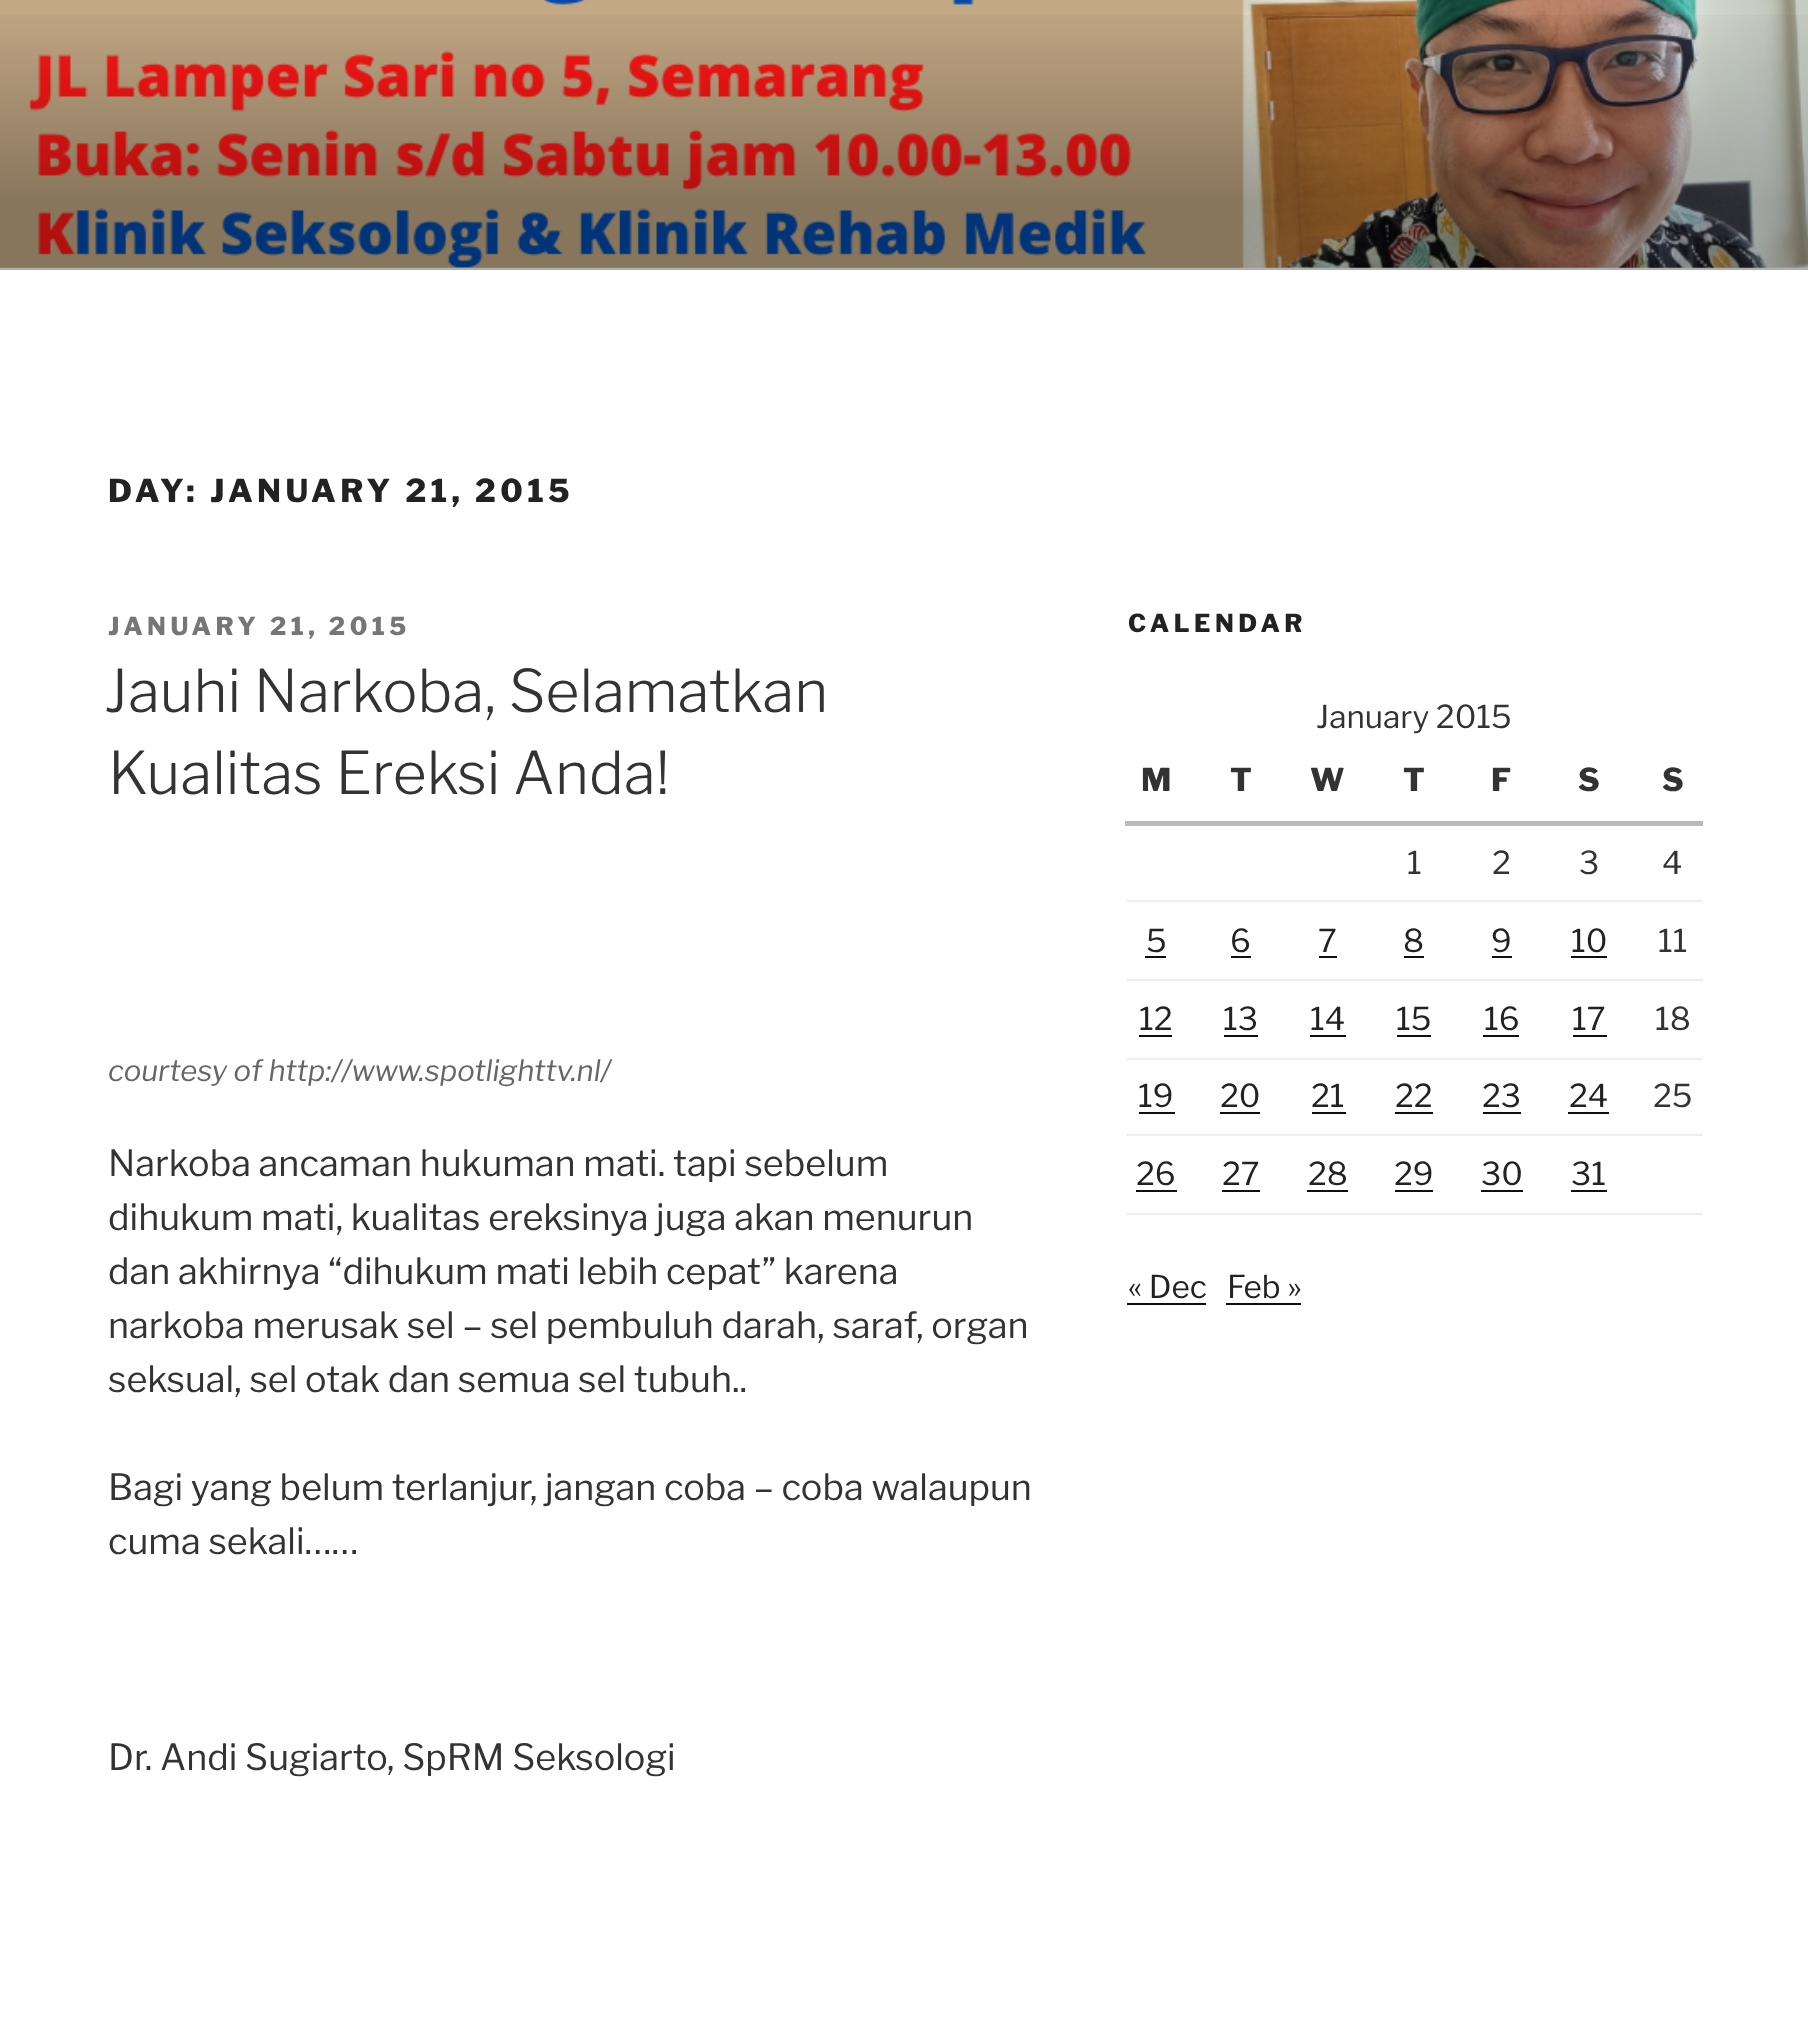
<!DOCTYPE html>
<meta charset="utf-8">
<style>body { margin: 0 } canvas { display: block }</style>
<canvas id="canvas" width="1808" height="2034"></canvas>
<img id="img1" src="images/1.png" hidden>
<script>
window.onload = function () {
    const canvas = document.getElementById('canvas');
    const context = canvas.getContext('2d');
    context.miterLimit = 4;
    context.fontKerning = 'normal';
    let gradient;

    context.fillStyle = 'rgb(255, 255, 255)';
    context.fillRect(0, 0, 1808, 2034);
    context.fillStyle = 'rgb(250, 250, 250)';
    context.fillRect(0, 267, 1808, 3);
    context.drawImage(document.getElementById('img1'), 0, 0, 1808, 268);
    gradient = context.createLinearGradient(905, 0, 905, 270);
    gradient.addColorStop(0, 'rgba(0, 0, 0, 0)');
    gradient.addColorStop(0.75, 'rgba(0, 0, 0, 0.3)');
    gradient.addColorStop(1, 'rgba(0, 0, 0, 0.3)');
    context.fillStyle = gradient;
    context.fillRect(0, 15, 1808, 255);
    context.fillStyle = 'rgb(187, 187, 187)';
    context.fillRect(1125, 821, 578, 5);
    context.fillStyle = 'rgb(238, 238, 238)';
    context.fillRect(1127, 900, 576, 2);
    context.fillRect(1127, 979, 576, 2);
    context.fillStyle = 'rgb(15, 15, 15)';
    context.fillRect(1145, 956, 21, 2);
    context.fillRect(1231, 956, 20, 2);
    context.fillRect(1319, 956, 18, 2);
    context.fillRect(1404, 956, 20, 2);
    context.fillRect(1492, 956, 20, 2);
    context.fillRect(1571, 956, 36, 2);
    context.fillStyle = 'rgb(238, 238, 238)';
    context.fillRect(1127, 1058, 576, 2);
    context.fillStyle = 'rgb(15, 15, 15)';
    context.fillRect(1139, 1035, 33, 2);
    context.fillRect(1224, 1035, 34, 2);
    context.fillRect(1310, 1035, 36, 2);
    context.fillRect(1397, 1035, 34, 2);
    context.fillRect(1483, 1035, 36, 2);
    context.fillRect(1573, 1035, 34, 2);
    context.fillStyle = 'rgb(238, 238, 238)';
    context.fillRect(1127, 1134, 576, 2);
    context.fillStyle = 'rgb(15, 15, 15)';
    context.fillRect(1139, 1112, 36, 2);
    context.fillRect(1220, 1112, 40, 2);
    context.fillRect(1312, 1112, 34, 2);
    context.fillRect(1395, 1112, 38, 2);
    context.fillRect(1483, 1112, 38, 2);
    context.fillRect(1568, 1112, 41, 2);
    context.fillStyle = 'rgb(238, 238, 238)';
    context.fillRect(1127, 1213, 576, 2);
    context.fillStyle = 'rgb(15, 15, 15)';
    context.fillRect(1136, 1190, 41, 2);
    context.fillRect(1222, 1190, 38, 2);
    context.fillRect(1307, 1190, 41, 2);
    context.fillRect(1395, 1190, 38, 2);
    context.fillRect(1481, 1190, 42, 2);
    context.fillRect(1571, 1190, 36, 2);
    context.fillRect(1127, 1303, 79, 2);
    context.fillRect(1226, 1303, 75, 2);
    context.letterSpacing = '4.4px';
    context.font = '800 31.5px Libre Franklin';
    context.fillStyle = 'rgb(34, 34, 34)';
    context.fillText('DAY: JANUARY 21, 2015', 108, 502);
    context.letterSpacing = '4.5px';
    context.font = '800 24.75px Libre Franklin';
    context.fillStyle = 'rgb(118, 118, 118)';
    context.fillText('JANUARY 21, 2015', 108, 635);
    context.letterSpacing = '0px';
    context.font = '300 58.5px Libre Franklin';
    context.fillStyle = 'rgb(51, 51, 51)';
    context.fillText('Jauhi Narkoba, Selamatkan', 104, 712);
    context.fillText('Kualitas Ereksi Anda!', 108, 794);
    context.font = 'italic 29.25px Libre Franklin';
    context.fillStyle = 'rgb(102, 102, 102)';
    context.fillText('courtesy of http://www.spotlighttv.nl/', 108, 1081);
    context.font = '36px Libre Franklin';
    context.fillStyle = 'rgb(51, 51, 51)';
    context.fillText('Narkoba ancaman hukuman mati. tapi sebelum', 108, 1176);
    context.fillText('dihukum mati, kualitas ereksinya juga akan menurun', 108, 1230);
    context.fillText('dan akhirnya “dihukum mati lebih cepat” karena', 108, 1284);
    context.fillText('narkoba merusak sel – sel pembuluh darah, saraf, organ', 108, 1338);
    context.fillText('seksual, sel otak dan semua sel tubuh..', 108, 1392);
    context.fillText('Bagi yang belum terlanjur, jangan coba – coba walaupun', 108, 1500);
    context.fillText('cuma sekali……', 108, 1554);
    context.fillText('Dr. Andi Sugiarto, SpRM Seksologi', 108, 1770);
    context.letterSpacing = '4.5px';
    context.font = '800 24.75px Libre Franklin';
    context.fillStyle = 'rgb(34, 34, 34)';
    context.fillText('CALENDAR', 1128, 632);
    context.letterSpacing = '0px';
    context.font = '31.5px Libre Franklin';
    context.fillStyle = 'rgb(51, 51, 51)';
    context.fillText('January 2015', 1316, 728);
    context.font = '800 31.5px Libre Franklin';
    context.fillText('M', 1141, 791);
    context.fillText('T', 1230, 791);
    context.fillText('W', 1310, 791);
    context.fillText('T', 1403, 791);
    context.fillText('F', 1491, 791);
    context.fillText('S', 1578, 791);
    context.fillText('S', 1662, 791);
    context.font = '31.5px Libre Franklin';
    context.fillText('1', 1407, 874);
    context.fillText('2', 1492, 874);
    context.fillText('3', 1579, 874);
    context.fillText('4', 1662, 874);
    context.fillStyle = 'rgb(34, 34, 34)';
    context.fillText('5', 1146, 952);
    context.fillText('6', 1230, 952);
    context.fillText('7', 1318, 952);
    context.fillText('8', 1403, 952);
    context.fillText('9', 1491, 952);
    context.fillText('10', 1571, 952);
    context.fillStyle = 'rgb(51, 51, 51)';
    context.fillText('11', 1658, 952);
    context.fillStyle = 'rgb(34, 34, 34)';
    context.fillText('12', 1139, 1030);
    context.fillText('13', 1223, 1030);
    context.fillText('14', 1310, 1030);
    context.fillText('15', 1396, 1030);
    context.fillText('16', 1484, 1030);
    context.fillText('17', 1572, 1030);
    context.fillStyle = 'rgb(51, 51, 51)';
    context.fillText('18', 1655, 1030);
    context.fillStyle = 'rgb(34, 34, 34)';
    context.fillText('19', 1138, 1107);
    context.fillText('20', 1220, 1107);
    context.fillText('21', 1311, 1107);
    context.fillText('22', 1395, 1107);
    context.fillText('23', 1482, 1107);
    context.fillText('24', 1569, 1107);
    context.fillStyle = 'rgb(51, 51, 51)';
    context.fillText('25', 1653, 1107);
    context.fillStyle = 'rgb(34, 34, 34)';
    context.fillText('26', 1136, 1185);
    context.fillText('27', 1222, 1185);
    context.fillText('28', 1308, 1185);
    context.fillText('29', 1394, 1185);
    context.fillText('30', 1481, 1185);
    context.fillText('31', 1571, 1185);
    context.fillText('« Dec', 1128, 1298);
    context.fillText('Feb »', 1227, 1298);
};
</script>
